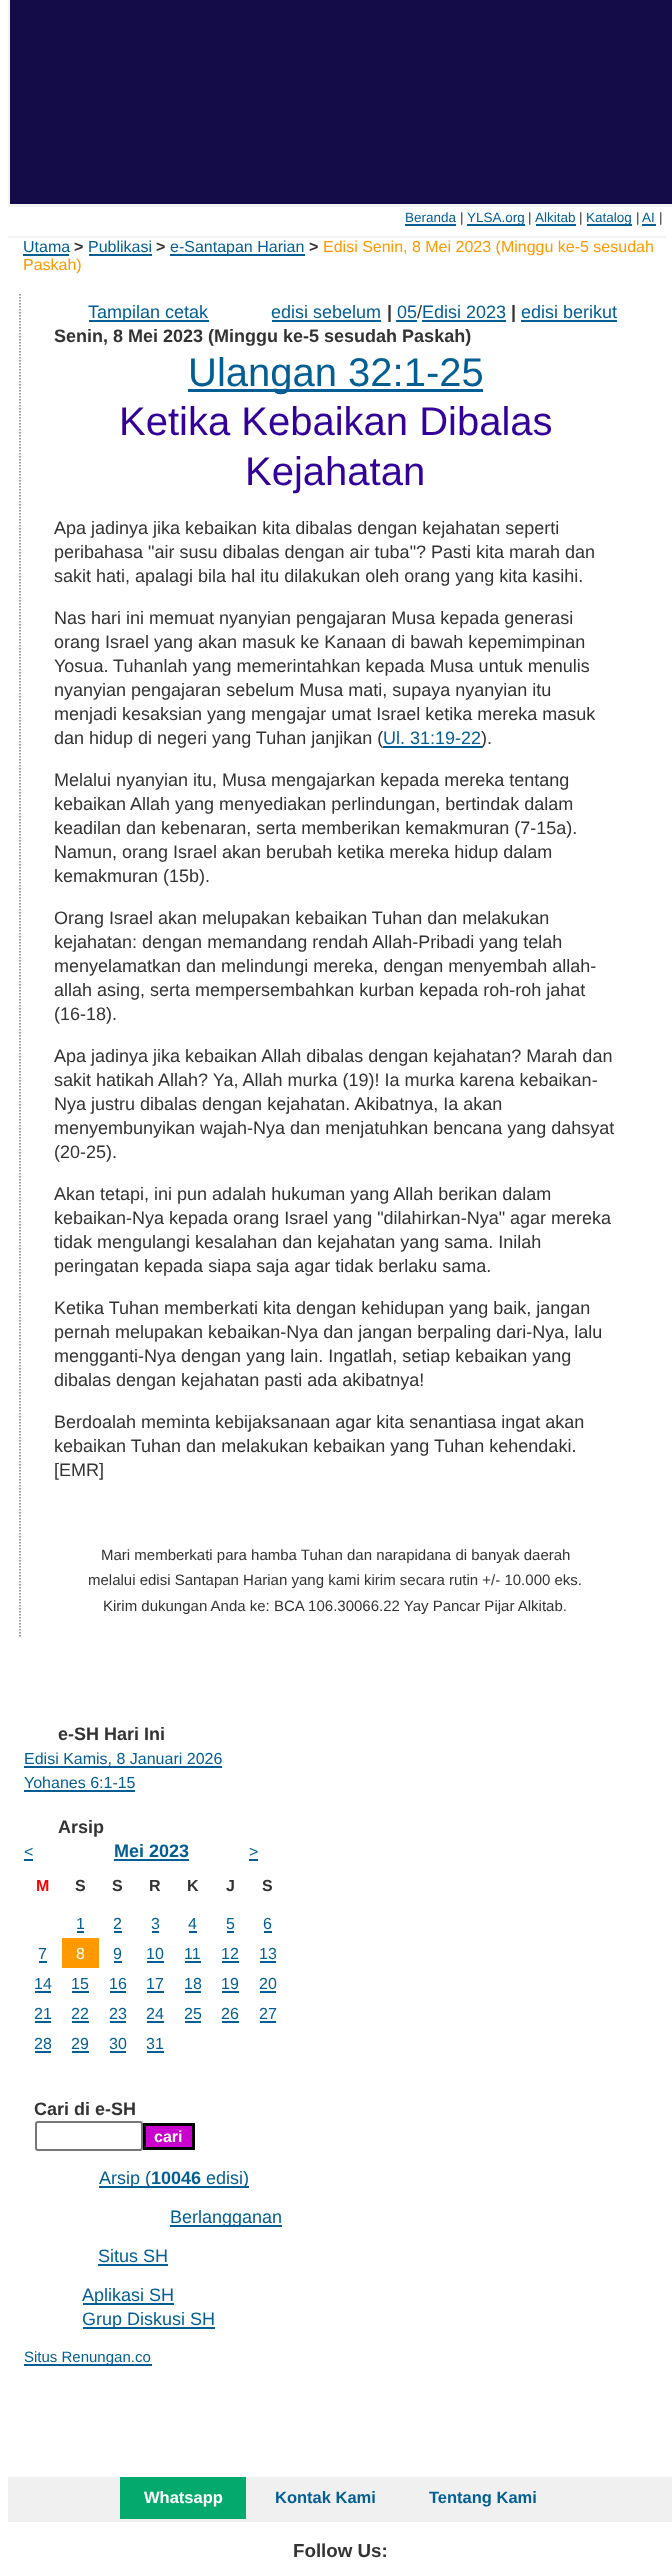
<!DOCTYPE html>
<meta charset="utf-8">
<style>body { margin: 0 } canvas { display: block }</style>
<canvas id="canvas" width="672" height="2576"></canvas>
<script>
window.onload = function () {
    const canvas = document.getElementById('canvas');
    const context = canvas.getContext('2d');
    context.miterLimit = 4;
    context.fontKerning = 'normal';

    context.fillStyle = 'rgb(255, 255, 255)';
    context.fillRect(0, 0, 672, 2576);
    context.fillStyle = 'rgb(19, 12, 73)';
    context.fillRect(10, 0, 662, 204);
    context.fillStyle = 'rgb(243, 243, 243)';
    context.fillRect(8, 204, 664, 3);
    context.fillRect(8, 0, 2, 207);
    context.fillRect(8, 236, 658, 2);
    context.fillStyle = 'rgb(3, 94, 148)';
    context.fillRect(405, 224, 51, 2);
    context.fillRect(467, 224, 58, 2);
    context.fillRect(536, 224, 40, 2);
    context.fillRect(587, 224, 45, 2);
    context.fillRect(642, 224, 14, 2);
    context.fillRect(23, 254, 46, 2);
    context.fillRect(89, 254, 63, 2);
    context.fillRect(170, 254, 135, 2);
    context.beginPath();
    context.moveTo(20, 294);
    context.lineTo(20, 1636.5);
    context.strokeStyle = 'rgb(128, 128, 128)';
    context.lineWidth = 1.5;
    context.setLineDash([1.5, 1.5]);
    context.stroke();
    context.fillRect(89, 320, 120, 2);
    context.fillRect(272, 320, 109, 2);
    context.fillRect(396, 320, 21, 2);
    context.fillRect(521, 320, 96, 2);
    context.fillRect(422, 320, 84, 2);
    context.fillRect(188, 389, 295, 3);
    context.fillRect(24, 1766, 198, 2);
    context.fillRect(24, 1790, 111, 2);
    context.fillRect(24, 1859, 9, 2);
    context.fillRect(114, 1859, 75, 2);
    context.fillRect(249, 1859, 9, 2);
    context.fillRect(77, 1931, 7, 2);
    context.fillRect(114, 1931, 8, 2);
    context.fillRect(152, 1931, 7, 2);
    context.fillRect(189, 1931, 8, 2);
    context.fillRect(227, 1931, 7, 2);
    context.fillRect(264, 1931, 8, 2);
    context.fillRect(39, 1961, 8, 2);
    context.fillStyle = 'rgb(255, 153, 0)';
    context.fillRect(62, 1938, 37, 30);
    context.fillStyle = 'rgb(3, 94, 148)';
    context.fillRect(114, 1961, 8, 2);
    context.fillRect(147, 1961, 17, 2);
    context.fillRect(185, 1961, 16, 2);
    context.fillRect(222, 1961, 17, 2);
    context.fillRect(260, 1961, 16, 2);
    context.fillRect(35, 1991, 16, 2);
    context.fillRect(72, 1991, 17, 2);
    context.fillRect(110, 1991, 16, 2);
    context.fillRect(147, 1991, 17, 2);
    context.fillRect(185, 1991, 16, 2);
    context.fillRect(222, 1991, 17, 2);
    context.fillRect(260, 1991, 16, 2);
    context.fillRect(35, 2021, 16, 2);
    context.fillRect(72, 2021, 17, 2);
    context.fillRect(110, 2021, 16, 2);
    context.fillRect(147, 2021, 17, 2);
    context.fillRect(185, 2021, 16, 2);
    context.fillRect(222, 2021, 17, 2);
    context.fillRect(260, 2021, 16, 2);
    context.fillRect(35, 2051, 16, 2);
    context.fillRect(72, 2051, 17, 2);
    context.fillRect(110, 2051, 16, 2);
    context.fillRect(147, 2051, 17, 2);
    context.beginPath();
    context.roundRect(36, 2122, 106, 28, 2);
    context.strokeStyle = 'rgb(118, 118, 118)';
    context.lineWidth = 2;
    context.setLineDash([]);
    context.stroke();
    context.fillStyle = 'rgb(201, 0, 206)';
    context.beginPath();
    context.rect(144.5, 2124.5, 49, 24);
    context.fill();
    context.strokeStyle = 'rgb(0, 0, 0)';
    context.lineWidth = 3;
    context.stroke();
    context.fillStyle = 'rgb(3, 94, 148)';
    context.fillRect(99, 2186, 150, 2);
    context.fillRect(170, 2225, 112, 2);
    context.fillRect(98, 2264, 70, 2);
    context.fillRect(83, 2303, 91, 2);
    context.fillRect(83, 2327, 132, 2);
    context.fillRect(24, 2364, 128, 2);
    context.fillStyle = 'rgb(240, 240, 240)';
    context.fillRect(8, 2477, 664, 45);
    context.fillStyle = 'rgb(4, 170, 109)';
    context.fillRect(120, 2477, 126, 42);
    context.font = '13.5px Liberation Sans';
    context.fillStyle = 'rgb(3, 94, 148)';
    context.fillText('Beranda', 405, 222);
    context.fillStyle = 'rgb(51, 51, 51)';
    context.fillText('|', 460, 222);
    context.fillStyle = 'rgb(3, 94, 148)';
    context.fillText('YLSA.org', 467, 222);
    context.fillStyle = 'rgb(51, 51, 51)';
    context.fillText('|', 528, 222);
    context.fillStyle = 'rgb(3, 94, 148)';
    context.fillText('Alkitab', 535, 222);
    context.fillStyle = 'rgb(51, 51, 51)';
    context.fillText('|', 579, 222);
    context.fillStyle = 'rgb(3, 94, 148)';
    context.fillText('Katalog', 586, 222);
    context.fillStyle = 'rgb(51, 51, 51)';
    context.fillText('|', 636, 222);
    context.fillStyle = 'rgb(3, 94, 148)';
    context.fillText('AI', 642, 222);
    context.fillStyle = 'rgb(51, 51, 51)';
    context.fillText('|', 659, 222);
    context.font = '16px Liberation Sans';
    context.fillStyle = 'rgb(3, 94, 148)';
    context.fillText('Utama', 23, 252);
    context.font = 'bold 16px Liberation Sans';
    context.fillStyle = 'rgb(51, 51, 51)';
    context.fillText('>', 74, 252);
    context.font = '16px Liberation Sans';
    context.fillStyle = 'rgb(3, 94, 148)';
    context.fillText('Publikasi', 88, 252);
    context.font = 'bold 16px Liberation Sans';
    context.fillStyle = 'rgb(51, 51, 51)';
    context.fillText('>', 156, 252);
    context.font = '16px Liberation Sans';
    context.fillStyle = 'rgb(3, 94, 148)';
    context.fillText('e-Santapan Harian', 170, 252);
    context.font = 'bold 16px Liberation Sans';
    context.fillStyle = 'rgb(51, 51, 51)';
    context.fillText('>', 309, 252);
    context.font = '16px Liberation Sans';
    context.fillStyle = 'rgb(255, 153, 0)';
    context.fillText('Edisi Senin, 8 Mei 2023 (Minggu ke-5 sesudah', 323, 252);
    context.fillText('Paskah)', 23, 270);
    context.font = '18px Liberation Sans';
    context.fillStyle = 'rgb(3, 94, 148)';
    context.fillText('Tampilan cetak', 88, 318);
    context.fillText('edisi sebelum', 271, 318);
    context.font = 'bold 18px Liberation Sans';
    context.fillStyle = 'rgb(51, 51, 51)';
    context.fillText('|', 387, 318);
    context.font = '18px Liberation Sans';
    context.fillStyle = 'rgb(3, 94, 148)';
    context.fillText('05 Edisi 2023', 397, 318);
    context.fillStyle = 'rgb(51, 51, 51)';
    context.fillText('/', 417, 318);
    context.font = 'bold 18px Liberation Sans';
    context.fillText('|', 511, 318);
    context.font = '18px Liberation Sans';
    context.fillStyle = 'rgb(3, 94, 148)';
    context.fillText('edisi berikut', 521, 318);
    context.font = 'bold 18px Liberation Sans';
    context.fillStyle = 'rgb(51, 51, 51)';
    context.fillText('Senin, 8 Mei 2023 (Minggu ke-5 sesudah Paskah)', 54, 342);
    context.font = '40px Liberation Sans';
    context.fillStyle = 'rgb(3, 94, 148)';
    context.fillText('Ulangan 32:1-25', 188, 386);
    context.fillStyle = 'rgb(51, 0, 153)';
    context.fillText('Ketika Kebaikan Dibalas', 119, 435);
    context.fillText('Kejahatan', 245, 485);
    context.font = '18px Liberation Sans';
    context.fillStyle = 'rgb(51, 51, 51)';
    context.fillText('Apa jadinya jika kebaikan kita dibalas dengan kejahatan seperti', 54, 534);
    context.fillText('peribahasa "air susu dibalas dengan air tuba"? Pasti kita marah dan', 54, 558);
    context.fillText('sakit hati, apalagi bila hal itu dilakukan oleh orang yang kita kasihi.', 54, 582);
    context.fillText('Nas hari ini memuat nyanyian pengajaran Musa kepada generasi', 54, 624);
    context.fillText('orang Israel yang akan masuk ke Kanaan di bawah kepemimpinan', 54, 648);
    context.fillText('Yosua. Tuhanlah yang memerintahkan kepada Musa untuk menulis', 54, 672);
    context.fillText('nyanyian pengajaran sebelum Musa mati, supaya nyanyian itu', 54, 696);
    context.fillText('menjadi kesaksian yang mengajar umat Israel ketika mereka masuk', 54, 720);
    context.fillText('dan hidup di negeri yang Tuhan janjikan (', 54, 744);
    context.fillStyle = 'rgb(3, 94, 148)';
    context.fillText('Ul. 31:19-22', 383, 744);
    context.fillRect(383, 746, 99, 2);
    context.fillStyle = 'rgb(51, 51, 51)';
    context.fillText(').', 481, 744);
    context.fillText('Melalui nyanyian itu, Musa mengajarkan kepada mereka tentang', 54, 786);
    context.fillText('kebaikan Allah yang menyediakan perlindungan, bertindak dalam', 54, 810);
    context.fillText('keadilan dan kebenaran, serta memberikan kemakmuran (7-15a).', 54, 834);
    context.fillText('Namun, orang Israel akan berubah ketika mereka hidup dalam', 54, 858);
    context.fillText('kemakmuran (15b).', 54, 882);
    context.fillText('Orang Israel akan melupakan kebaikan Tuhan dan melakukan', 54, 924);
    context.fillText('kejahatan: dengan memandang rendah Allah-Pribadi yang telah', 54, 948);
    context.fillText('menyelamatkan dan melindungi mereka, dengan menyembah allah-', 54, 972);
    context.fillText('allah asing, serta mempersembahkan kurban kepada roh-roh jahat', 54, 996);
    context.fillText('(16-18).', 54, 1020);
    context.fillText('Apa jadinya jika kebaikan Allah dibalas dengan kejahatan? Marah dan', 54, 1062);
    context.fillText('sakit hatikah Allah? Ya, Allah murka (19)! Ia murka karena kebaikan-', 54, 1086);
    context.fillText('Nya justru dibalas dengan kejahatan. Akibatnya, Ia akan', 54, 1110);
    context.fillText('menyembunyikan wajah-Nya dan menjatuhkan bencana yang dahsyat', 54, 1134);
    context.fillText('(20-25).', 54, 1158);
    context.fillText('Akan tetapi, ini pun adalah hukuman yang Allah berikan dalam', 54, 1200);
    context.fillText('kebaikan-Nya kepada orang Israel yang "dilahirkan-Nya" agar mereka', 54, 1224);
    context.fillText('tidak mengulangi kesalahan dan kejahatan yang sama. Inilah', 54, 1248);
    context.fillText('peringatan kepada siapa saja agar tidak berlaku sama.', 54, 1272);
    context.fillText('Ketika Tuhan memberkati kita dengan kehidupan yang baik, jangan', 54, 1314);
    context.fillText('pernah melupakan kebaikan-Nya dan jangan berpaling dari-Nya, lalu', 54, 1338);
    context.fillText('mengganti-Nya dengan yang lain. Ingatlah, setiap kebaikan yang', 54, 1362);
    context.fillText('dibalas dengan kejahatan pasti ada akibatnya!', 54, 1386);
    context.fillText('Berdoalah meminta kebijaksanaan agar kita senantiasa ingat akan', 54, 1428);
    context.fillText('kebaikan Tuhan dan melakukan kebaikan yang Tuhan kehendaki.', 54, 1452);
    context.fillText('[EMR]', 54, 1476);
    context.font = '15px Liberation Sans';
    context.fillText('Mari memberkati para hamba Tuhan dan narapidana di banyak daerah', 101, 1560);
    context.fillText('melalui edisi Santapan Harian yang kami kirim secara rutin +/- 10.000 eks.', 88, 1585);
    context.fillText('Kirim dukungan Anda ke: BCA 106.30066.22 Yay Pancar Pijar Alkitab.', 103, 1611);
    context.font = 'bold 18px Liberation Sans';
    context.fillText('e-SH Hari Ini', 58, 1740);
    context.font = '16px Liberation Sans';
    context.fillStyle = 'rgb(3, 94, 148)';
    context.fillText('Edisi Kamis, 8 Januari 2026', 24, 1764);
    context.fillText('Yohanes 6:1-15', 24, 1788);
    context.font = 'bold 18px Liberation Sans';
    context.fillStyle = 'rgb(51, 51, 51)';
    context.fillText('Arsip', 58, 1833);
    context.font = '16px Liberation Sans';
    context.fillStyle = 'rgb(3, 94, 148)';
    context.fillText('<', 24, 1857);
    context.font = 'bold 18px Liberation Sans';
    context.fillText('Mei 2023', 114, 1857);
    context.font = '16px Liberation Sans';
    context.fillText('>', 249, 1857);
    context.font = 'bold 16px Liberation Sans';
    context.fillStyle = 'rgb(255, 0, 0)';
    context.fillText('M', 36, 1891);
    context.fillStyle = 'rgb(51, 51, 51)';
    context.fillText('S', 75, 1891);
    context.fillText('S', 112, 1891);
    context.fillText('R', 149, 1891);
    context.fillText('K', 187, 1891);
    context.fillText('J', 226, 1891);
    context.fillText('S', 262, 1891);
    context.font = '16px Liberation Sans';
    context.fillStyle = 'rgb(3, 94, 148)';
    context.fillText('1', 76, 1929);
    context.fillText('2', 113, 1929);
    context.fillText('3', 151, 1929);
    context.fillText('4', 188, 1929);
    context.fillText('5', 226, 1929);
    context.fillText('6', 263, 1929);
    context.fillText('7', 38, 1959);
    context.fillStyle = 'rgb(255, 255, 255)';
    context.fillText('8', 76, 1959);
    context.fillStyle = 'rgb(3, 94, 148)';
    context.fillText('9', 113, 1959);
    context.fillText('10', 146, 1959);
    context.fillText('11', 184, 1959);
    context.fillText('12', 221, 1959);
    context.fillText('13', 259, 1959);
    context.fillText('14', 34, 1989);
    context.fillText('15', 71, 1989);
    context.fillText('16', 109, 1989);
    context.fillText('17', 146, 1989);
    context.fillText('18', 184, 1989);
    context.fillText('19', 221, 1989);
    context.fillText('20', 259, 1989);
    context.fillText('21', 34, 2019);
    context.fillText('22', 71, 2019);
    context.fillText('23', 109, 2019);
    context.fillText('24', 146, 2019);
    context.fillText('25', 184, 2019);
    context.fillText('26', 221, 2019);
    context.fillText('27', 259, 2019);
    context.fillText('28', 34, 2049);
    context.fillText('29', 71, 2049);
    context.fillText('30', 109, 2049);
    context.fillText('31', 146, 2049);
    context.font = 'bold 18px Liberation Sans';
    context.fillStyle = 'rgb(51, 51, 51)';
    context.fillText('Cari di e-SH', 34, 2115);
    context.font = 'bold 16px Liberation Sans';
    context.fillStyle = 'rgb(255, 255, 255)';
    context.fillText('cari', 154, 2142);
    context.font = '18px Liberation Sans';
    context.fillStyle = 'rgb(3, 94, 148)';
    context.fillText('Arsip (', 99, 2184);
    context.font = 'bold 18px Liberation Sans';
    context.fillText('10046', 151, 2184);
    context.font = '18px Liberation Sans';
    context.fillText('edisi)', 206, 2184);
    context.fillText('Berlangganan', 170, 2223);
    context.fillText('Situs SH', 98, 2262);
    context.fillText('Aplikasi SH', 82, 2301);
    context.fillText('Grup Diskusi SH', 82, 2325);
    context.font = '15px Liberation Sans';
    context.fillText('Situs Renungan.co', 24, 2362);
    context.font = 'bold 16.5px Liberation Sans';
    context.fillStyle = 'rgb(255, 255, 255)';
    context.fillText('Whatsapp', 144, 2503);
    context.fillStyle = 'rgb(3, 94, 148)';
    context.fillText('Kontak Kami', 275, 2503);
    context.fillText('Tentang Kami', 429, 2503);
    context.font = 'bold 18.75px Liberation Sans';
    context.fillStyle = 'rgb(51, 51, 51)';
    context.fillText('Follow Us:', 293, 2557);
};
</script>
